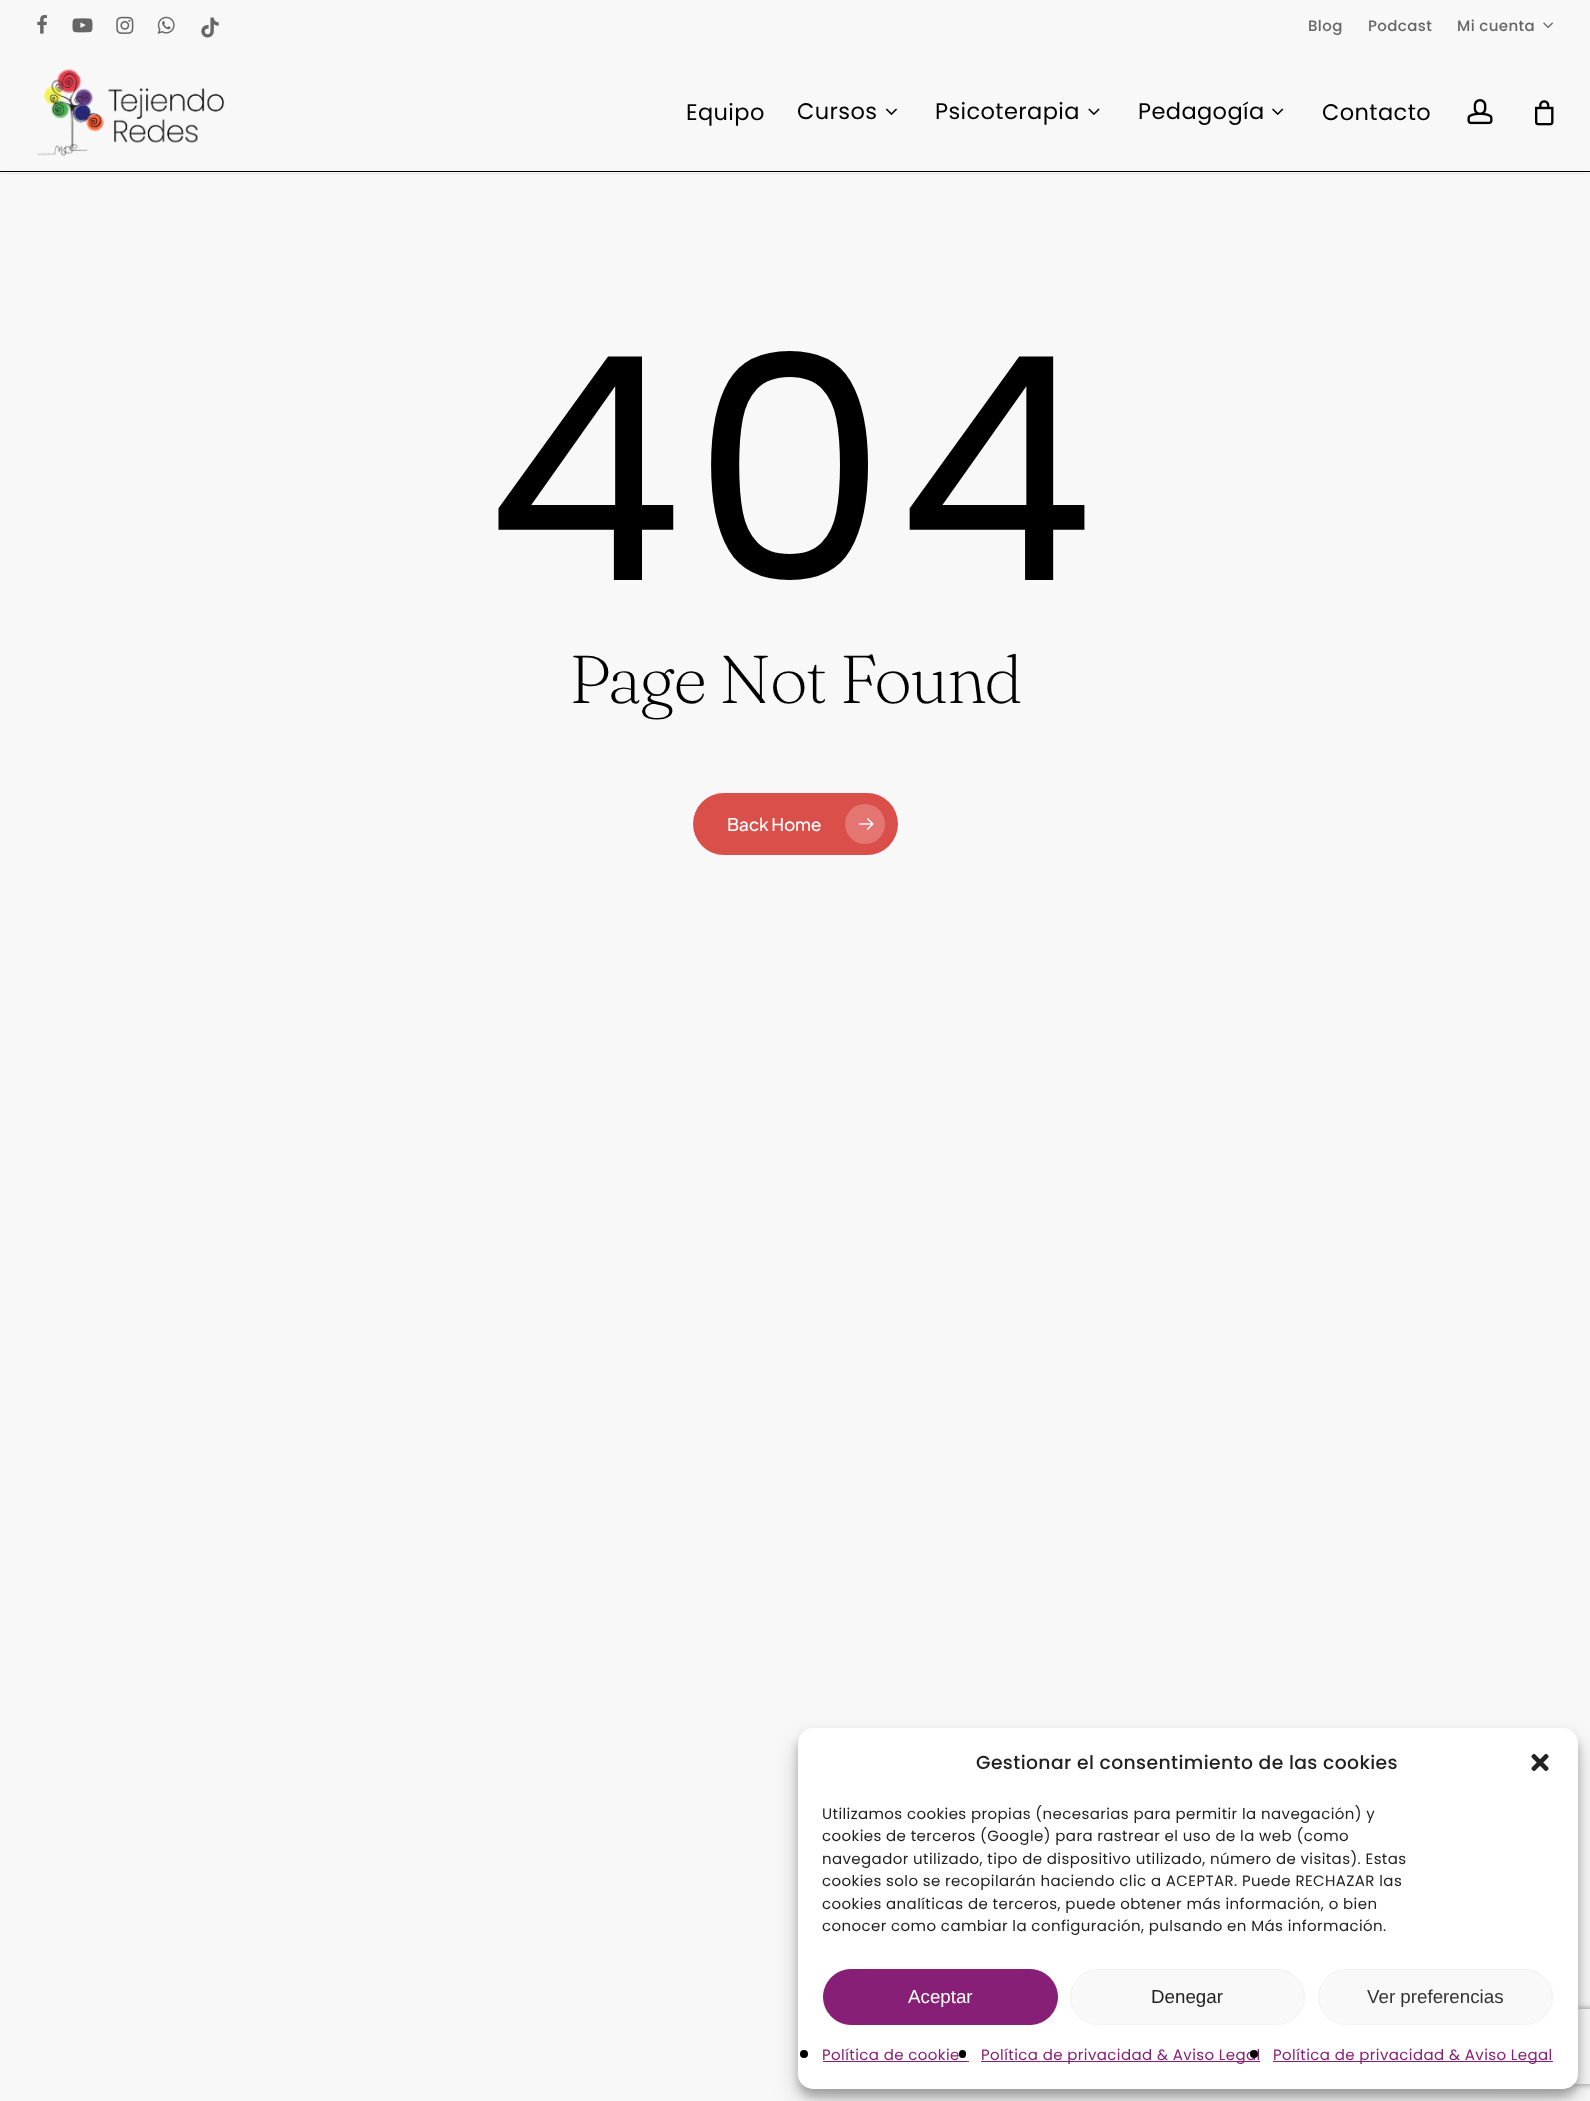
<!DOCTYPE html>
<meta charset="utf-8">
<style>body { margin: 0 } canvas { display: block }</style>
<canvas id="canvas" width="1590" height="2101"></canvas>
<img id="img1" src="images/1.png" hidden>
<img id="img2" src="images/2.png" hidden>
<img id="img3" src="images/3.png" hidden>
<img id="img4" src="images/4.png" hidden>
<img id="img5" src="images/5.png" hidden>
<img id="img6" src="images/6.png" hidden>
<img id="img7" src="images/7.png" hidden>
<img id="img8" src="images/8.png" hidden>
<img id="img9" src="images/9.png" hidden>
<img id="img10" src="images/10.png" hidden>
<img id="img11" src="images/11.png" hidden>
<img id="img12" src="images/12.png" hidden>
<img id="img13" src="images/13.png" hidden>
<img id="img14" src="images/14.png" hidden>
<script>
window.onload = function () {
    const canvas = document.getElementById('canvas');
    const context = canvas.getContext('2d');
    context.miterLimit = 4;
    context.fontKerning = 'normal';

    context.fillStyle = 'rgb(248, 248, 248)';
    context.fillRect(0, 0, 1590, 2101);
    context.fillStyle = 'rgba(0, 0, 0, 0.14)';
    context.filter = 'blur(1px)';
    context.beginPath();
    context.rect(0, 0, 1590, 173);
    context.fill();
    context.filter = 'none';
    context.fillStyle = 'rgb(248, 248, 248)';
    context.fillRect(0, 0, 1590, 173);
    context.drawImage(document.getElementById('img1'), 37, 15, 10, 19);
    context.drawImage(document.getElementById('img2'), 72, 18, 21, 15);
    context.drawImage(document.getElementById('img3'), 116, 16, 18, 18);
    context.drawImage(document.getElementById('img4'), 157, 16, 18, 18);
    context.drawImage(document.getElementById('img5'), 201, 17, 18, 21);
    context.drawImage(document.getElementById('img6'), 1543, 22, 10, 7);
    context.fillStyle = 'rgb(0, 0, 0)';
    context.fillRect(0, 171, 1590, 1);
    context.drawImage(document.getElementById('img7'), 37, 68, 188, 88);
    context.drawImage(document.getElementById('img8'), 885, 108, 12, 7);
    context.drawImage(document.getElementById('img9'), 1088, 108, 12, 7);
    context.drawImage(document.getElementById('img10'), 1272, 108, 12, 7);
    context.drawImage(document.getElementById('img11'), 1467, 99, 26, 26);
    context.drawImage(document.getElementById('img12'), 1535, 100, 19, 26);
    context.fillStyle = 'rgb(219, 79, 74)';
    context.beginPath();
    context.roundRect(693, 793, 205, 62, 31);
    context.fill();
    context.fillStyle = 'rgb(227, 118, 114)';
    context.beginPath();
    context.arc(865, 824, 20, 0, 2 * Math.PI);
    context.fill();
    context.drawImage(document.getElementById('img13'), 859, 818, 15, 12);
    context.fillStyle = 'rgba(0, 0, 0, 0.23)';
    context.filter = 'blur(4px)';
    context.beginPath();
    context.roundRect(798, 1735, 780, 361, 15);
    context.fill();
    context.filter = 'none';
    context.fillStyle = 'rgba(0, 0, 0, 0.19)';
    context.filter = 'blur(12.5px)';
    context.beginPath();
    context.roundRect(798, 1740, 780, 361, 15);
    context.fill();
    context.filter = 'none';
    context.save();
    context.beginPath();
    context.moveTo(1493, 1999);
    context.lineTo(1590, 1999);
    context.lineTo(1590, 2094);
    context.lineTo(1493, 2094);
    context.closePath();
    context.moveTo(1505.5, 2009);
    context.lineTo(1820.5, 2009);
    context.bezierCurveTo(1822, 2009, 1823, 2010, 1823, 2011.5);
    context.lineTo(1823, 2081.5);
    context.bezierCurveTo(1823, 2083, 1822, 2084, 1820.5, 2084);
    context.lineTo(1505.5, 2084);
    context.bezierCurveTo(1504, 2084, 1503, 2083, 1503, 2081.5);
    context.lineTo(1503, 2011.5);
    context.bezierCurveTo(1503, 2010, 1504, 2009, 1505.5, 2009);
    context.closePath();
    context.clip('evenodd');
    context.fillStyle = 'rgb(128, 128, 128)';
    context.filter = 'blur(3px)';
    context.beginPath();
    context.roundRect(1503, 2009, 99, 75, 2.5);
    context.fill();
    context.filter = 'none';
    context.restore();
    context.fillStyle = 'rgb(255, 255, 255)';
    context.beginPath();
    context.roundRect(798, 1728, 780, 361, 15);
    context.fill();
    context.drawImage(document.getElementById('img14'), 1531, 1753, 18, 18);
    context.fillStyle = 'rgb(134, 31, 117)';
    context.beginPath();
    context.roundRect(823.5, 1969.5, 234, 55, 27.5);
    context.fill();
    context.strokeStyle = 'rgb(134, 31, 117)';
    context.stroke();
    context.fillStyle = 'rgb(249, 249, 249)';
    context.beginPath();
    context.roundRect(1070.5, 1969.5, 234, 55, 27.5);
    context.fill();
    context.strokeStyle = 'rgb(242, 242, 242)';
    context.stroke();
    context.beginPath();
    context.roundRect(1318.5, 1969.5, 234, 55, 27.5);
    context.fill();
    context.stroke();
    context.fillStyle = 'rgb(0, 0, 0)';
    context.beginPath();
    context.arc(804, 2054, 4, 0, 2 * Math.PI);
    context.fill();
    context.fillStyle = 'rgb(134, 31, 117)';
    context.fillRect(823, 2061, 146, 1);
    context.fillStyle = 'rgb(0, 0, 0)';
    context.beginPath();
    context.roundRect(959, 2050, 7, 8, 3.5);
    context.fill();
    context.fillStyle = 'rgb(134, 31, 117)';
    context.fillRect(981, 2061, 279, 1);
    context.fillRect(1273, 2061, 280, 1);
    context.letterSpacing = '0.4px';
    context.font = '500 15px Poppins';
    context.fillStyle = 'rgb(102, 102, 102)';
    context.fillText('Blog', 1308, 31);
    context.fillText('Podcast', 1368, 31);
    context.fillText('Mi cuenta', 1457, 31);
    context.font = '22.5px Poppins';
    context.fillStyle = 'rgb(0, 0, 0)';
    context.fillText('Equipo', 686, 120);
    context.fillText('Cursos', 797, 119);
    context.fillText('Psicoterapia', 935, 119);
    context.fillText('Pedagogía', 1138, 119);
    context.fillText('Contacto', 1322, 120);
    context.letterSpacing = '9.5px';
    context.font = '312px Poppins';
    context.fillText('404', 486, 580);
    context.letterSpacing = '-2px';
    context.font = '200 67.5px Fraunces';
    context.fillText('Page Not Found', 569, 703);
    context.letterSpacing = '-0.25px';
    context.font = '500 17.5px Plus Jakarta Sans';
    context.fillStyle = 'rgb(255, 255, 255)';
    context.fillText('Back Home', 727, 831);
    context.letterSpacing = '0.4px';
    context.font = '500 18.75px Poppins';
    context.fillStyle = 'rgb(34, 34, 34)';
    context.fillText('Gestionar el consentimiento de las cookies', 976, 1769);
    context.font = '15px Poppins';
    context.fillText('Utilizamos cookies propias (necesarias para permitir la navegación) y', 822, 1819);
    context.fillText('cookies de terceros (Google) para rastrear el uso de la web (como', 822, 1841);
    context.fillText('navegador utilizado, tipo de dispositivo utilizado, número de visitas). Estas', 822, 1864);
    context.fillText('cookies solo se recopilarán haciendo clic a ACEPTAR. Puede RECHAZAR las', 822, 1886);
    context.fillText('cookies analíticas de terceros, puede obtener más información, o bien', 822, 1909);
    context.fillText('conocer como cambiar la configuración, pulsando en Más información.', 822, 1931);
    context.letterSpacing = '0px';
    context.font = '18.75px Liberation Sans';
    context.fillStyle = 'rgb(255, 255, 255)';
    context.fillText('Aceptar', 908, 2003);
    context.fillStyle = 'rgb(34, 34, 34)';
    context.fillText('Denegar', 1151, 2003);
    context.fillStyle = 'rgb(51, 51, 51)';
    context.fillText('Ver preferencias', 1367, 2003);
    context.letterSpacing = '0.4px';
    context.font = '15px Poppins';
    context.fillStyle = 'rgb(134, 31, 117)';
    context.fillText('Política de cookie', 822, 2060);
    context.fillText('Política de privacidad & Aviso Legal', 981, 2060);
    context.fillStyle = 'rgb(0, 0, 0)';
    context.beginPath();
    context.arc(1254, 2054, 4, 0, 2 * Math.PI);
    context.fill();
    context.fillStyle = 'rgb(134, 31, 117)';
    context.fillText('Política de privacidad & Aviso Legal', 1273, 2060);
};
</script>
